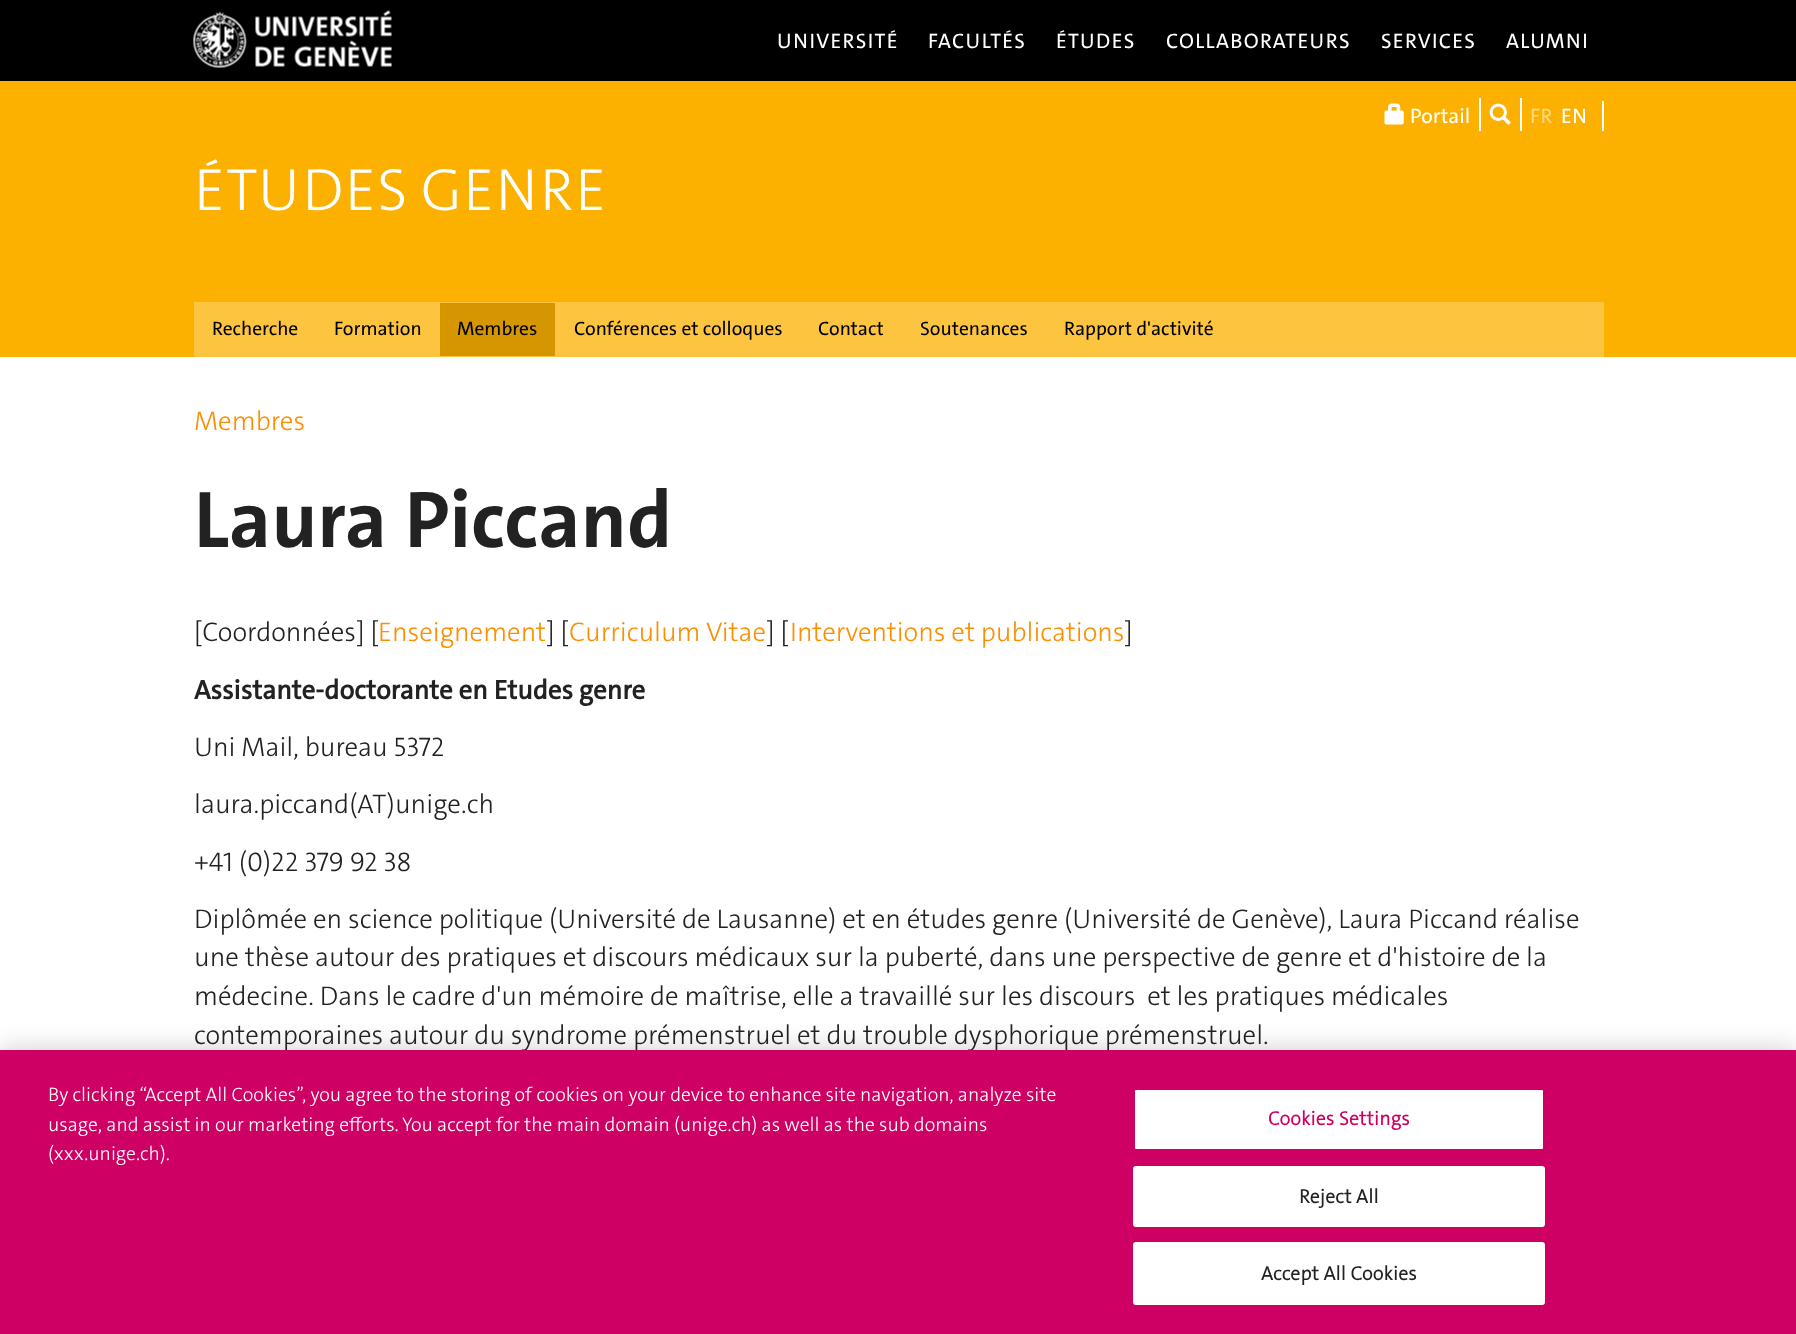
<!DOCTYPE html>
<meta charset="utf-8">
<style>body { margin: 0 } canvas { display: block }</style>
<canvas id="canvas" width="1796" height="1334"></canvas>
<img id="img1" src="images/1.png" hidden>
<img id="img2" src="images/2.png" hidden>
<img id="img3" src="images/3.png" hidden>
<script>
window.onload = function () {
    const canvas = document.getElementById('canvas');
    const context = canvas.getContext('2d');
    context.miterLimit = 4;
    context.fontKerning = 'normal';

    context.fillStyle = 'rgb(255, 255, 255)';
    context.fillRect(0, 0, 1796, 1334);
    context.fillStyle = 'rgb(0, 0, 0)';
    context.fillRect(0, 0, 1796, 81);
    context.drawImage(document.getElementById('img1'), 193, 10, 199, 58);
    context.fillStyle = 'rgb(252, 176, 0)';
    context.fillRect(0, 81, 1796, 276);
    context.fillStyle = 'rgb(255, 255, 255)';
    context.fillRect(1479, 98, 2, 33);
    context.drawImage(document.getElementById('img2'), 1384, 103, 20, 22);
    context.fillRect(1520, 98, 2, 33);
    context.drawImage(document.getElementById('img3'), 1489, 103, 22, 22);
    context.fillRect(1602, 101, 2, 30);
    context.fillStyle = 'rgb(253, 196, 64)';
    context.fillRect(194, 302, 1410, 55);
    context.fillStyle = 'rgb(214, 150, 0)';
    context.fillRect(440, 303, 115, 53);
    context.fillStyle = 'rgba(0, 0, 0, 0.2)';
    context.filter = 'blur(13.5px)';
    context.beginPath();
    context.rect(0, 1050, 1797, 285);
    context.fill();
    context.filter = 'none';
    context.letterSpacing = '0.8px';
    context.font = '21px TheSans';
    context.fillStyle = 'rgb(255, 255, 255)';
    context.fillText('UNIVERSITÉ', 777, 48);
    context.fillText('FACULTÉS', 928, 48);
    context.fillText('ÉTUDES', 1056, 48);
    context.fillText('COLLABORATEURS', 1166, 48);
    context.fillText('SERVICES', 1381, 48);
    context.fillText('ALUMNI', 1506, 48);
    context.letterSpacing = '0px';
    context.fillText('Portail', 1410, 123);
    context.fillStyle = 'rgb(254, 216, 128)';
    context.fillText('FR', 1530, 123);
    context.fillStyle = 'rgb(255, 255, 255)';
    context.fillText('EN', 1561, 123);
    context.font = '300 60px TheSans';
    context.fillText('ÉTUDES GENRE', 194, 210);
    context.font = '19.5px TheSans';
    context.fillStyle = 'rgb(0, 0, 0)';
    context.fillText('Recherche', 212, 335);
    context.fillText('Formation', 334, 335);
    context.fillText('Membres', 457, 335);
    context.fillText('Conférences et colloques', 574, 335);
    context.fillText('Contact', 818, 335);
    context.fillText('Soutenances', 920, 335);
    context.fillText('Rapport d\'activité', 1064, 335);
    context.font = '300 27px TheSans';
    context.fillStyle = 'rgb(252, 142, 0)';
    context.fillText('Membres', 194, 430);
    context.font = 'bold 81px TheSans';
    context.fillStyle = 'rgb(34, 34, 34)';
    context.fillText('Laura Piccand', 194, 547);
    context.font = '300 27px TheSans';
    context.fillText('[Coordonnées] [', 194, 641);
    context.fillStyle = 'rgb(252, 142, 0)';
    context.fillText('Enseignement', 378, 641);
    context.fillStyle = 'rgb(34, 34, 34)';
    context.fillText('] [', 546, 641);
    context.fillStyle = 'rgb(252, 142, 0)';
    context.fillText('Curriculum Vitae', 569, 641);
    context.fillStyle = 'rgb(34, 34, 34)';
    context.fillText('] [', 766, 641);
    context.fillStyle = 'rgb(252, 142, 0)';
    context.fillText('Interventions et publications', 790, 641);
    context.fillStyle = 'rgb(34, 34, 34)';
    context.fillText(']', 1124, 641);
    context.font = 'bold 27px "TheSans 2"';
    context.fillText('Assistante-doctorante en Etudes genre', 194, 699);
    context.font = '300 27px TheSans';
    context.fillText('Uni Mail, bureau 5372', 194, 756);
    context.fillText('laura.piccand(AT)unige.ch', 194, 813);
    context.fillText('+41 (0)22 379 92 38', 194, 871);
    context.fillText('Diplômée en science politique (Université de Lausanne) et en études genre (Université de Genève), Laura Piccand réalise', 194, 928);
    context.fillText('une thèse autour des pratiques et discours médicaux sur la puberté, dans une perspective de genre et d\'histoire de la', 194, 966);
    context.fillText('médecine. Dans le cadre d\'un mémoire de maîtrise, elle a travaillé sur les discours  et les pratiques médicales', 194, 1005);
    context.fillText('contemporaines autour du syndrome prémenstruel et du trouble dysphorique prémenstruel.', 194, 1044);
    context.fillStyle = 'rgb(207, 0, 99)';
    context.fillRect(0, 1050, 1796, 284);
    context.font = '300 19.5px TheSans';
    context.fillStyle = 'rgb(255, 255, 255)';
    context.fillText('By clicking “Accept All Cookies”, you agree to the storing of cookies on your device to enhance site navigation, analyze site', 48, 1101);
    context.fillText('usage, and assist in our marketing efforts. You accept for the main domain (unige.ch) as well as the sub domains', 48, 1131);
    context.fillText('(xxx.unige.ch).', 48, 1160);
    context.beginPath();
    context.roundRect(1134, 1089, 410, 61, 2);
    context.fill();
    context.strokeStyle = 'rgb(207, 0, 99)';
    context.lineWidth = 2;
    context.stroke();
    context.letterSpacing = '0.25px';
    context.font = 'bold 19.5px "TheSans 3"';
    context.fillStyle = 'rgb(207, 0, 99)';
    context.fillText('Cookies Settings', 1268, 1125);
    context.fillStyle = 'rgb(255, 255, 255)';
    context.beginPath();
    context.roundRect(1134, 1167, 410, 59, 2);
    context.fill();
    context.strokeStyle = 'rgb(255, 255, 255)';
    context.stroke();
    context.fillStyle = 'rgb(34, 34, 34)';
    context.fillText('Reject All', 1299, 1203);
    context.fillStyle = 'rgb(255, 255, 255)';
    context.beginPath();
    context.roundRect(1134, 1243, 410, 61, 2);
    context.fill();
    context.stroke();
    context.fillStyle = 'rgb(34, 34, 34)';
    context.fillText('Accept All Cookies', 1261, 1280);
};
</script>
